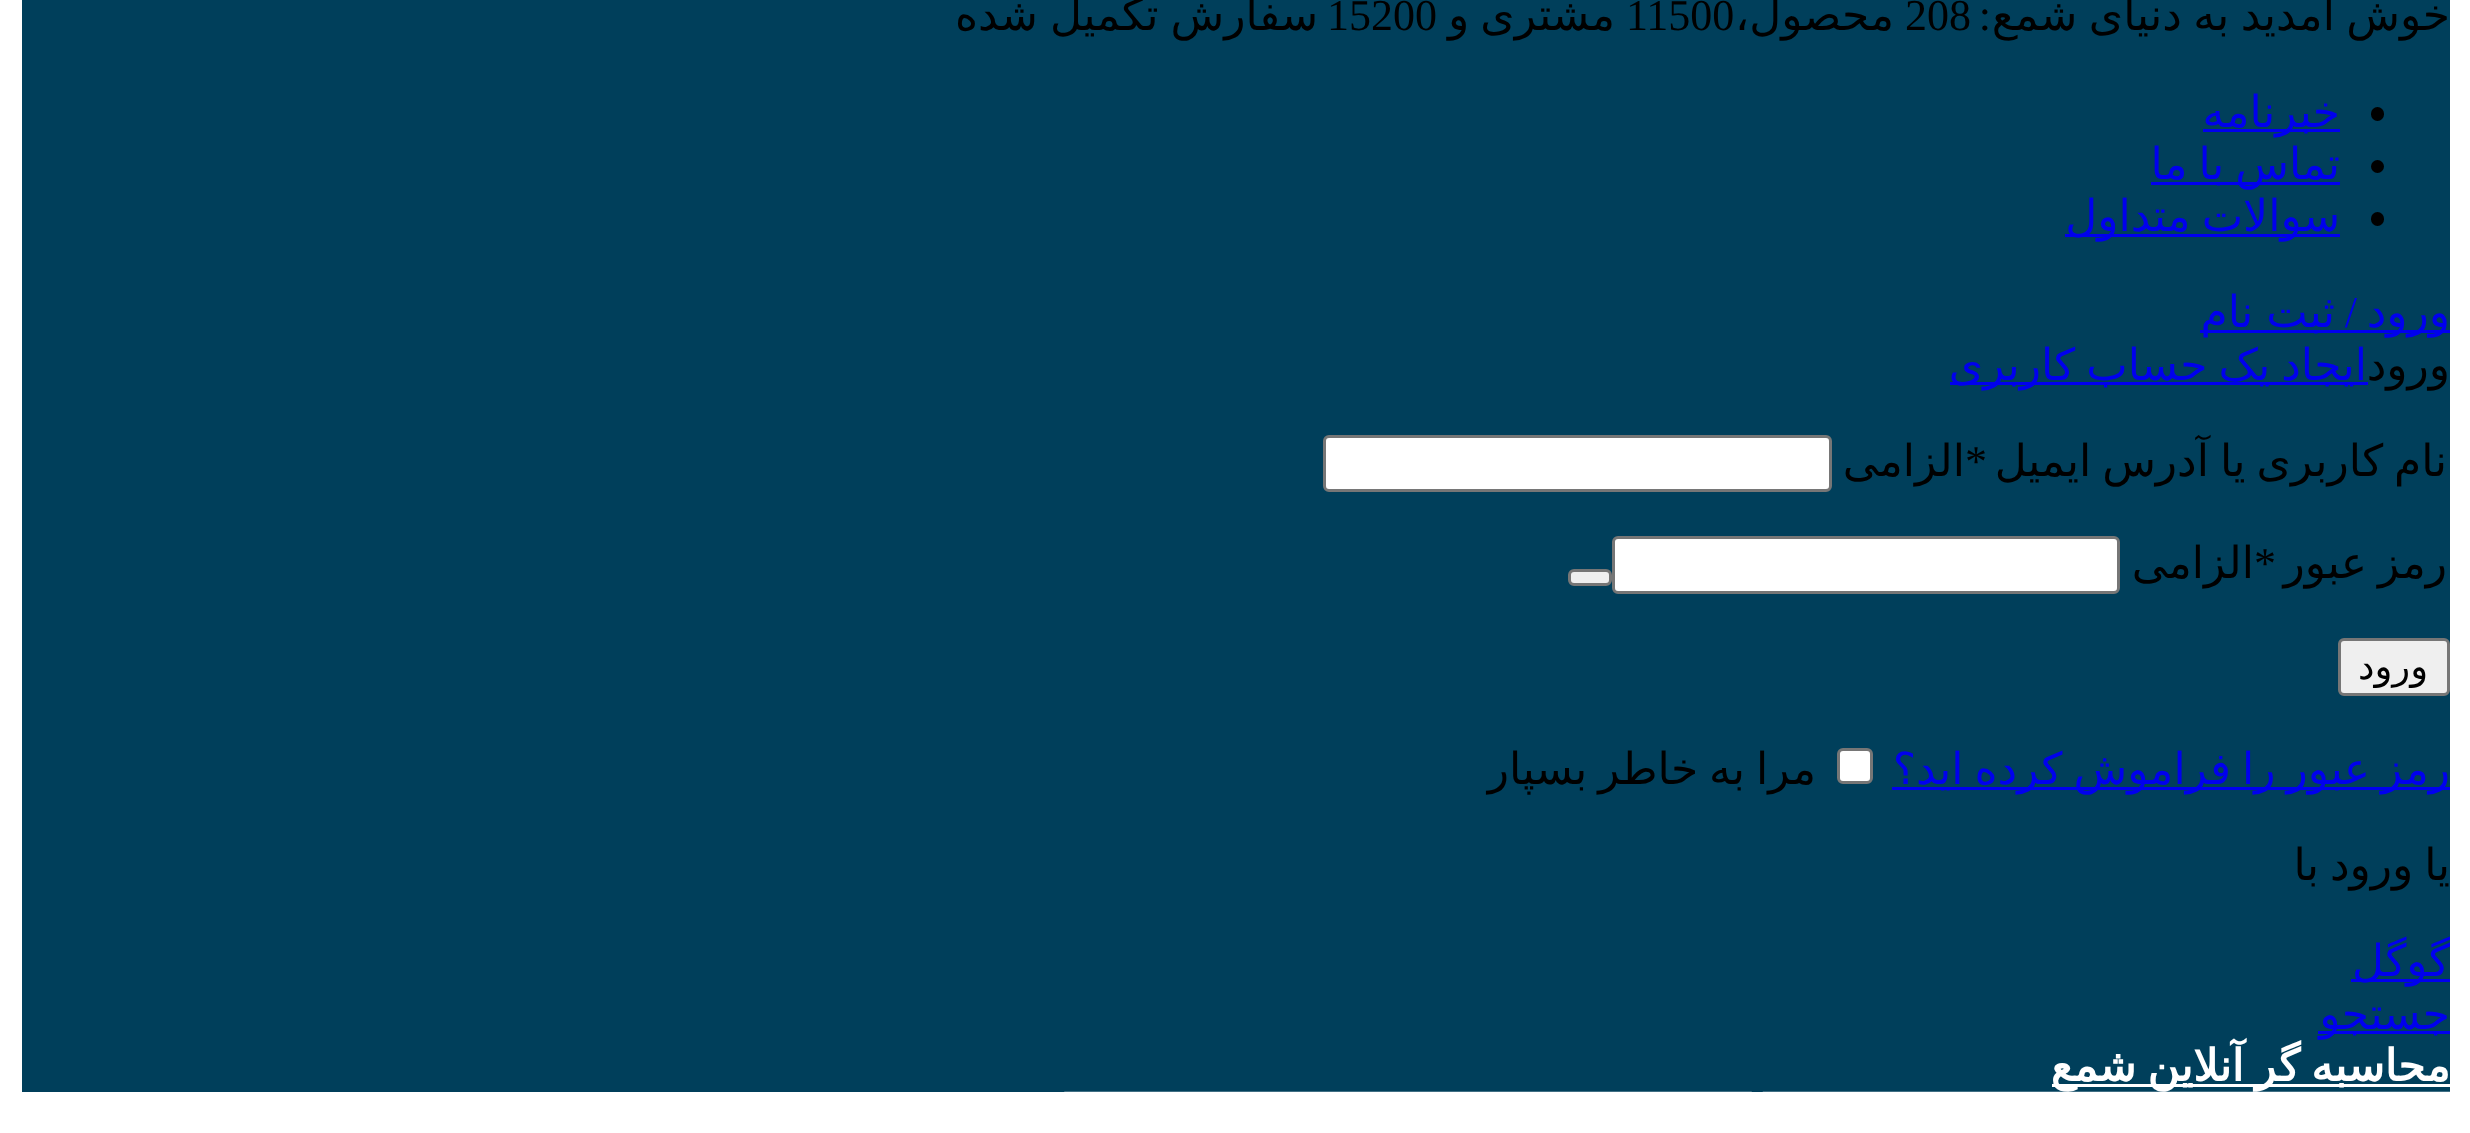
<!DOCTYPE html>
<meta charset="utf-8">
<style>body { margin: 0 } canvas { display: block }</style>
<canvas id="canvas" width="2470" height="1133"></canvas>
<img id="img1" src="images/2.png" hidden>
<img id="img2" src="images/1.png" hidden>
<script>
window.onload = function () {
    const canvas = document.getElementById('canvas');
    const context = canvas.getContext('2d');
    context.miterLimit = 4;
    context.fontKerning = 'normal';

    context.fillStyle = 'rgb(255, 255, 255)';
    context.fillRect(0, 0, 2470, 1133);
    context.fillStyle = 'rgb(0, 63, 91)';
    context.fillRect(22, 0, 2428, 1092);
    context.fillStyle = 'rgb(0, 0, 0)';
    context.beginPath();
    context.roundRect(2371, 107, 13, 14, 6.5);
    context.fill();
    context.fillStyle = 'rgb(0, 0, 238)';
    context.fillRect(2203, 129, 137, 3);
    context.fillStyle = 'rgb(0, 0, 0)';
    context.beginPath();
    context.arc(2377.5, 166.5, 6.5, 0, 2 * Math.PI);
    context.fill();
    context.fillStyle = 'rgb(0, 0, 238)';
    context.fillRect(2151, 182, 189, 3);
    context.fillStyle = 'rgb(0, 0, 0)';
    context.beginPath();
    context.roundRect(2371, 212, 13, 14, 6.5);
    context.fill();
    context.fillStyle = 'rgb(0, 0, 238)';
    context.fillRect(2065, 234, 275, 3);
    context.fillRect(2200, 330, 250, 3);
    context.fillRect(1950, 382, 418, 3);
    context.fillStyle = 'rgb(255, 255, 255)';
    context.beginPath();
    context.roundRect(1324.5, 436.5, 506, 54, 4.5);
    context.fill();
    context.strokeStyle = 'rgb(118, 118, 118)';
    context.lineWidth = 3;
    context.stroke();
    context.beginPath();
    context.roundRect(1613.5, 537.5, 505, 55, 4.5);
    context.fill();
    context.stroke();
    context.fillStyle = 'rgb(239, 239, 239)';
    context.beginPath();
    context.roundRect(1569.5, 570.5, 41, 14, 4.5);
    context.fill();
    context.stroke();
    context.beginPath();
    context.roundRect(2339.5, 639.5, 109, 55, 4.5);
    context.fill();
    context.stroke();
    context.fillStyle = 'rgb(0, 0, 238)';
    context.fillRect(1892, 787, 558, 3);
    context.fillStyle = 'rgb(255, 255, 255)';
    context.beginPath();
    context.roundRect(1838.5, 749.5, 33, 33, 4.5);
    context.fill();
    context.stroke();
    context.fillStyle = 'rgb(0, 0, 238)';
    context.fillRect(2351, 979, 99, 3);
    context.fillRect(2318, 1031, 132, 3);
    context.fillStyle = 'rgb(255, 255, 255)';
    context.fillRect(2052, 1084, 398, 3);
    context.drawImage(document.getElementById('img1'), 1064, 1091, 688, 1);
    context.wordSpacing = '-2.5px';
    context.direction = 'rtl';
    context.font = '44px DejaVu Sans';
    context.fillStyle = 'rgb(0, 0, 0)';
    context.fillText('خوش آمدید به دنیای شمع', 2450, 30);
    context.wordSpacing = '0px';
    context.font = '44px Liberation Serif';
    context.fillText(':', 1991, 30);
    context.direction = 'ltr';
    context.fillText('208', 1905, 30);
    context.direction = 'rtl';
    context.font = '44px DejaVu Sans';
    context.fillText('محصول،', 1894, 30);
    context.direction = 'ltr';
    context.font = '44px Liberation Serif';
    context.fillText('11500', 1626, 30);
    context.wordSpacing = '-3px';
    context.direction = 'rtl';
    context.font = '44px DejaVu Sans';
    context.fillText('مشتری و', 1615, 30);
    context.wordSpacing = '0px';
    context.direction = 'ltr';
    context.font = '44px Liberation Serif';
    context.fillText('15200', 1327, 30);
    context.wordSpacing = '-2px';
    context.direction = 'rtl';
    context.font = '44px DejaVu Sans';
    context.fillText('سفارش تکمیل شده', 1318, 30);
    context.wordSpacing = '0px';
    context.fillStyle = 'rgb(0, 0, 238)';
    context.fillText('خبرنامه', 2340, 127);
    context.wordSpacing = '-3px';
    context.fillText('تماس با ما', 2340, 179);
    context.fillText('سوالات متداول', 2340, 231);
    context.wordSpacing = '0px';
    context.fillText('ورود', 2450, 327);
    context.font = '44px Liberation Serif';
    context.fillText('/', 2357, 327);
    context.wordSpacing = '-1px';
    context.font = '44px DejaVu Sans';
    context.fillText('ثبت نام', 2335, 327);
    context.wordSpacing = '0px';
    context.fillStyle = 'rgb(0, 0, 0)';
    context.fillText('ورود', 2450, 380);
    context.wordSpacing = '-3px';
    context.fillStyle = 'rgb(0, 0, 238)';
    context.fillText('ایجاد یک حساب کاربری', 2367, 380);
    context.fillStyle = 'rgb(0, 0, 0)';
    context.fillText('نام کاربری یا آدرس ایمیل', 2447, 476);
    context.wordSpacing = '0px';
    context.direction = 'ltr';
    context.font = '44px Liberation Serif';
    context.fillText('*', 1965, 476);
    context.direction = 'rtl';
    context.font = '44px DejaVu Sans';
    context.fillText('الزامی', 1965, 476);
    context.wordSpacing = '-3px';
    context.fillText('رمز عبور', 2447, 578);
    context.wordSpacing = '0px';
    context.direction = 'ltr';
    context.font = '44px Liberation Serif';
    context.fillText('*', 2254, 578);
    context.direction = 'rtl';
    context.font = '44px DejaVu Sans';
    context.fillText('الزامی', 2254, 578);
    context.font = '37px DejaVu Sans';
    context.fillText('ورود', 2428, 679);
    context.wordSpacing = '-3px';
    context.font = '44px DejaVu Sans';
    context.fillStyle = 'rgb(0, 0, 238)';
    context.fillText('رمز عبور را فراموش کرده اید؟', 2450, 784);
    context.fillStyle = 'rgb(0, 0, 0)';
    context.fillText('مرا به خاطر بسپار', 1816, 784);
    context.fillText('یا ورود با', 2450, 880);
    context.wordSpacing = '0px';
    context.fillStyle = 'rgb(0, 0, 238)';
    context.fillText('گوگل', 2450, 976);
    context.fillText('جستجو', 2450, 1029);
    context.wordSpacing = '-3px';
    context.font = 'bold 44px DejaVu Sans';
    context.fillStyle = 'rgb(255, 255, 255)';
    context.fillText('محاسبه گر آنلاین شمع', 2450, 1081);
    context.drawImage(document.getElementById('img2'), 1762, 1091, 688, 1);
};
</script>
